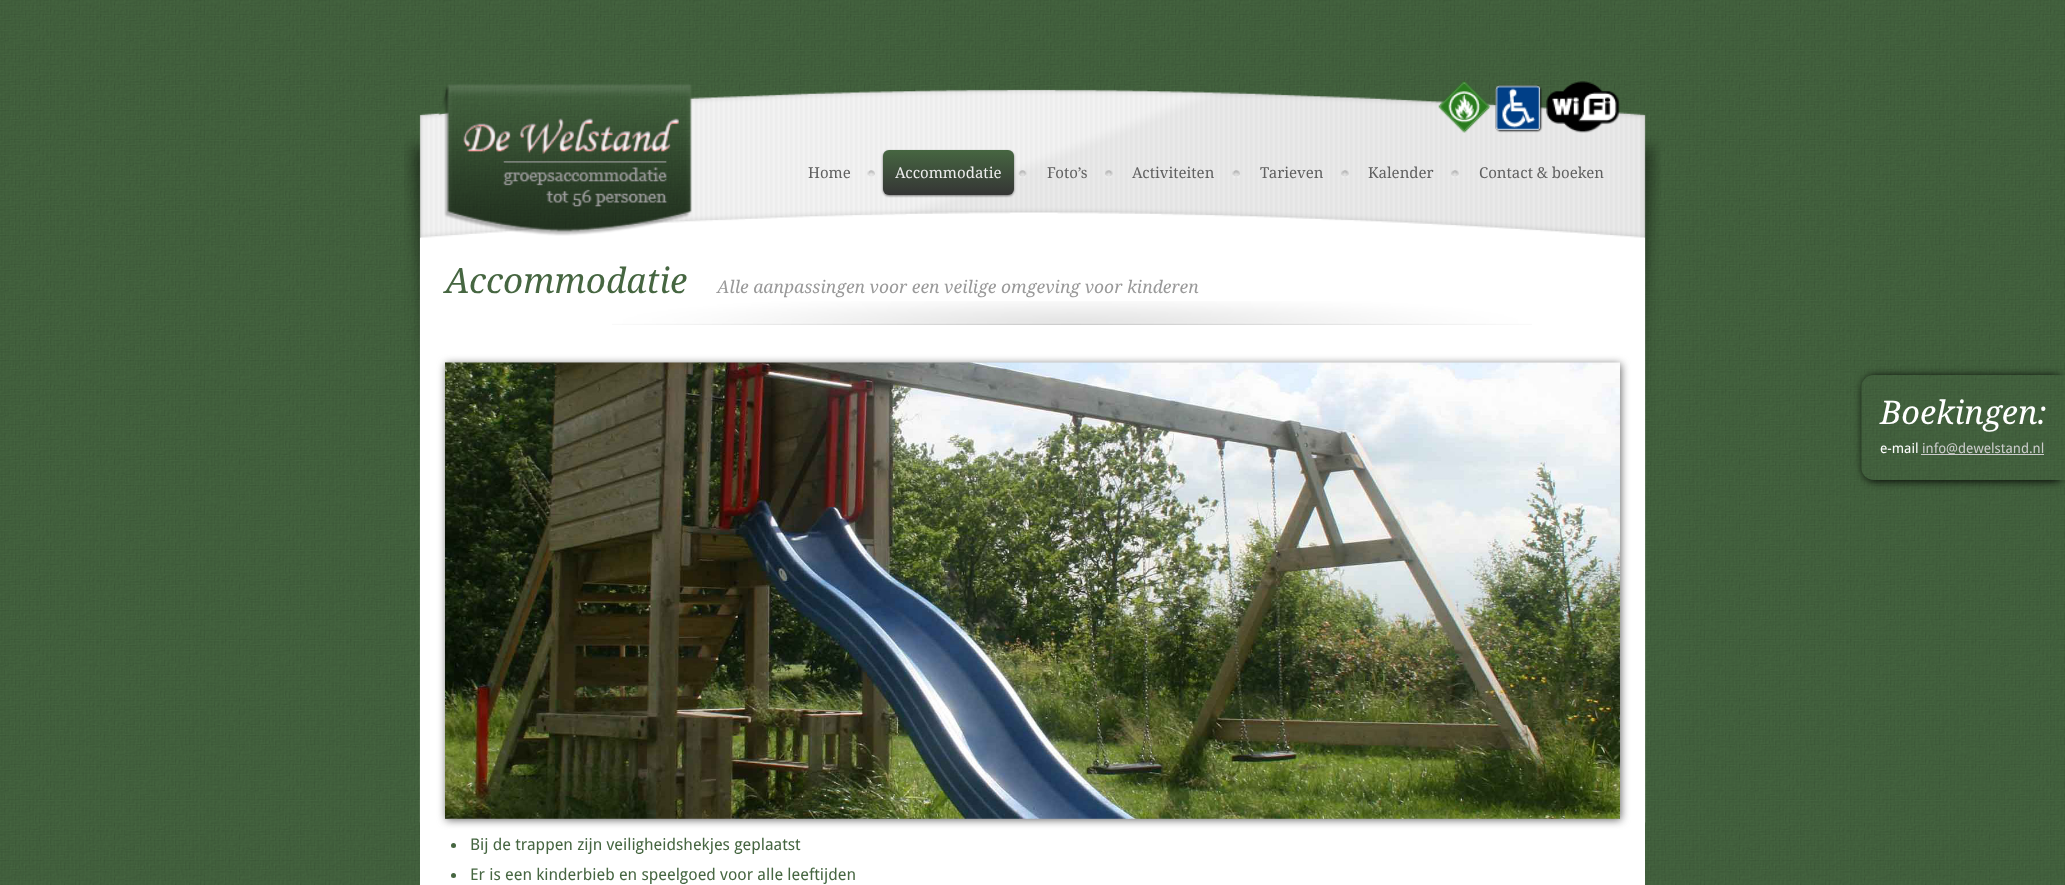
<!DOCTYPE html>
<meta charset="utf-8">
<style>body { margin: 0 } canvas { display: block }</style>
<canvas id="canvas" width="2065" height="885"></canvas>
<img id="img1" src="images/1.png" hidden>
<img id="img2" src="images/2.png" hidden>
<img id="img3" src="images/3.png" hidden>
<img id="img4" src="images/4.png" hidden>
<img id="img5" src="images/5.png" hidden>
<img id="img6" src="images/6.png" hidden>
<img id="img7" src="images/7.png" hidden>
<img id="img8" src="images/8.png" hidden>
<img id="img9" src="images/9.png" hidden>
<img id="img10" src="images/10.png" hidden>
<img id="img11" src="images/11.png" hidden>
<img id="img12" src="images/12.png" hidden>
<img id="img13" src="images/13.png" hidden>
<img id="img14" src="images/14.png" hidden>
<script>
window.onload = function () {
    const canvas = document.getElementById('canvas');
    const context = canvas.getContext('2d');
    context.miterLimit = 4;
    context.fontKerning = 'normal';
    let gradient;

    context.fillStyle = 'rgb(255, 255, 255)';
    context.fillRect(0, 0, 2065, 885);
    context.drawImage(document.getElementById('img1'), 0, 0, 2065, 885);
    context.drawImage(document.getElementById('img2'), 404, 89, 1257, 734);
    context.drawImage(document.getElementById('img3'), 438, 84, 254, 152);
    context.drawImage(document.getElementById('img4'), 1438, 81, 52, 52);
    context.drawImage(document.getElementById('img5'), 1495, 85, 48, 48);
    context.drawImage(document.getElementById('img6'), 1546, 81, 74, 52);
    context.drawImage(document.getElementById('img7'), 867, 170, 8, 7);
    context.drawImage(document.getElementById('img8'), 1018, 170, 9, 8);
    context.fillStyle = 'rgba(0, 0, 0, 0.5)';
    context.filter = 'blur(1px)';
    context.beginPath();
    context.roundRect(883, 151, 131, 45, 6);
    context.fill();
    context.filter = 'none';
    gradient = context.createLinearGradient(883, 150, 883, 195);
    gradient.addColorStop(0, 'rgb(70, 102, 65)');
    gradient.addColorStop(1, 'rgb(53, 53, 53)');
    context.fillStyle = gradient;
    context.beginPath();
    context.roundRect(883, 150, 131, 45, 6);
    context.fill();
    context.drawImage(document.getElementById('img9'), 1105, 170, 8, 8);
    context.drawImage(document.getElementById('img10'), 1232, 170, 8, 8);
    context.drawImage(document.getElementById('img11'), 1341, 170, 8, 8);
    context.drawImage(document.getElementById('img11'), 1451, 170, 8, 8);
    context.fillStyle = 'rgb(255, 255, 255)';
    context.fillRect(420, 238, 1225, 647);
    context.drawImage(document.getElementById('img12'), 612, 301, 920, 24);
    context.fillStyle = 'rgb(102, 102, 102)';
    context.filter = 'blur(4px)';
    context.beginPath();
    context.rect(446, 364, 1175, 456);
    context.fill();
    context.filter = 'none';
    context.drawImage(document.getElementById('img13'), 445, 362, 1175, 457);
    context.fillStyle = 'rgb(70, 102, 65)';
    context.beginPath();
    context.arc(453.5, 845.5, 2.5, 0, 2 * Math.PI);
    context.fill();
    context.beginPath();
    context.arc(453.5, 875.5, 2.5, 0, 2 * Math.PI);
    context.fill();
    context.fillStyle = 'rgb(0, 0, 0)';
    context.filter = 'blur(4px)';
    context.beginPath();
    context.roundRect(1863, 376, 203, 105, 13);
    context.fill();
    context.filter = 'none';
    context.drawImage(document.getElementById('img14'), 1861, 375, 204, 105);
    context.fillStyle = 'rgb(204, 204, 204)';
    context.fillRect(1921, 454, 123, 1);
    context.font = '15px Droid Serif';
    context.fillStyle = 'rgb(96, 96, 96)';
    context.fillText('Home', 808, 178);
    context.fillStyle = 'rgb(238, 238, 238)';
    context.fillText('Accommodatie', 895, 178);
    context.fillStyle = 'rgb(96, 96, 96)';
    context.fillText('Foto’s', 1047, 178);
    context.fillText('Activiteiten', 1132, 178);
    context.fillText('Tarieven', 1260, 178);
    context.fillText('Kalender', 1368, 178);
    context.fillText('Contact & boeken', 1479, 178);
    context.font = 'italic 35px Droid Serif';
    context.fillStyle = 'rgb(70, 102, 65)';
    context.fillText('Accommodatie', 445, 293);
    context.font = 'italic 17.5px Droid Serif';
    context.fillStyle = 'rgb(153, 153, 153)';
    context.fillText('Alle aanpassingen voor een veilige omgeving voor kinderen', 717, 293);
    context.font = '16.25px Droid Sans';
    context.fillStyle = 'rgb(70, 102, 65)';
    context.fillText('Bij de trappen zijn veiligheidshekjes geplaatst', 470, 850);
    context.fillText('Er is een kinderbieb en speelgoed voor alle leeftijden', 470, 880);
    context.font = 'italic 32.5px Droid Serif';
    context.fillStyle = 'rgb(255, 255, 255)';
    context.fillText('Boekingen:', 1880, 424);
    context.font = '13.75px Droid Sans';
    context.fillText('e-mail', 1880, 453);
    context.fillStyle = 'rgb(204, 204, 204)';
    context.fillText('info@dewelstand.nl', 1922, 453);
};
</script>
